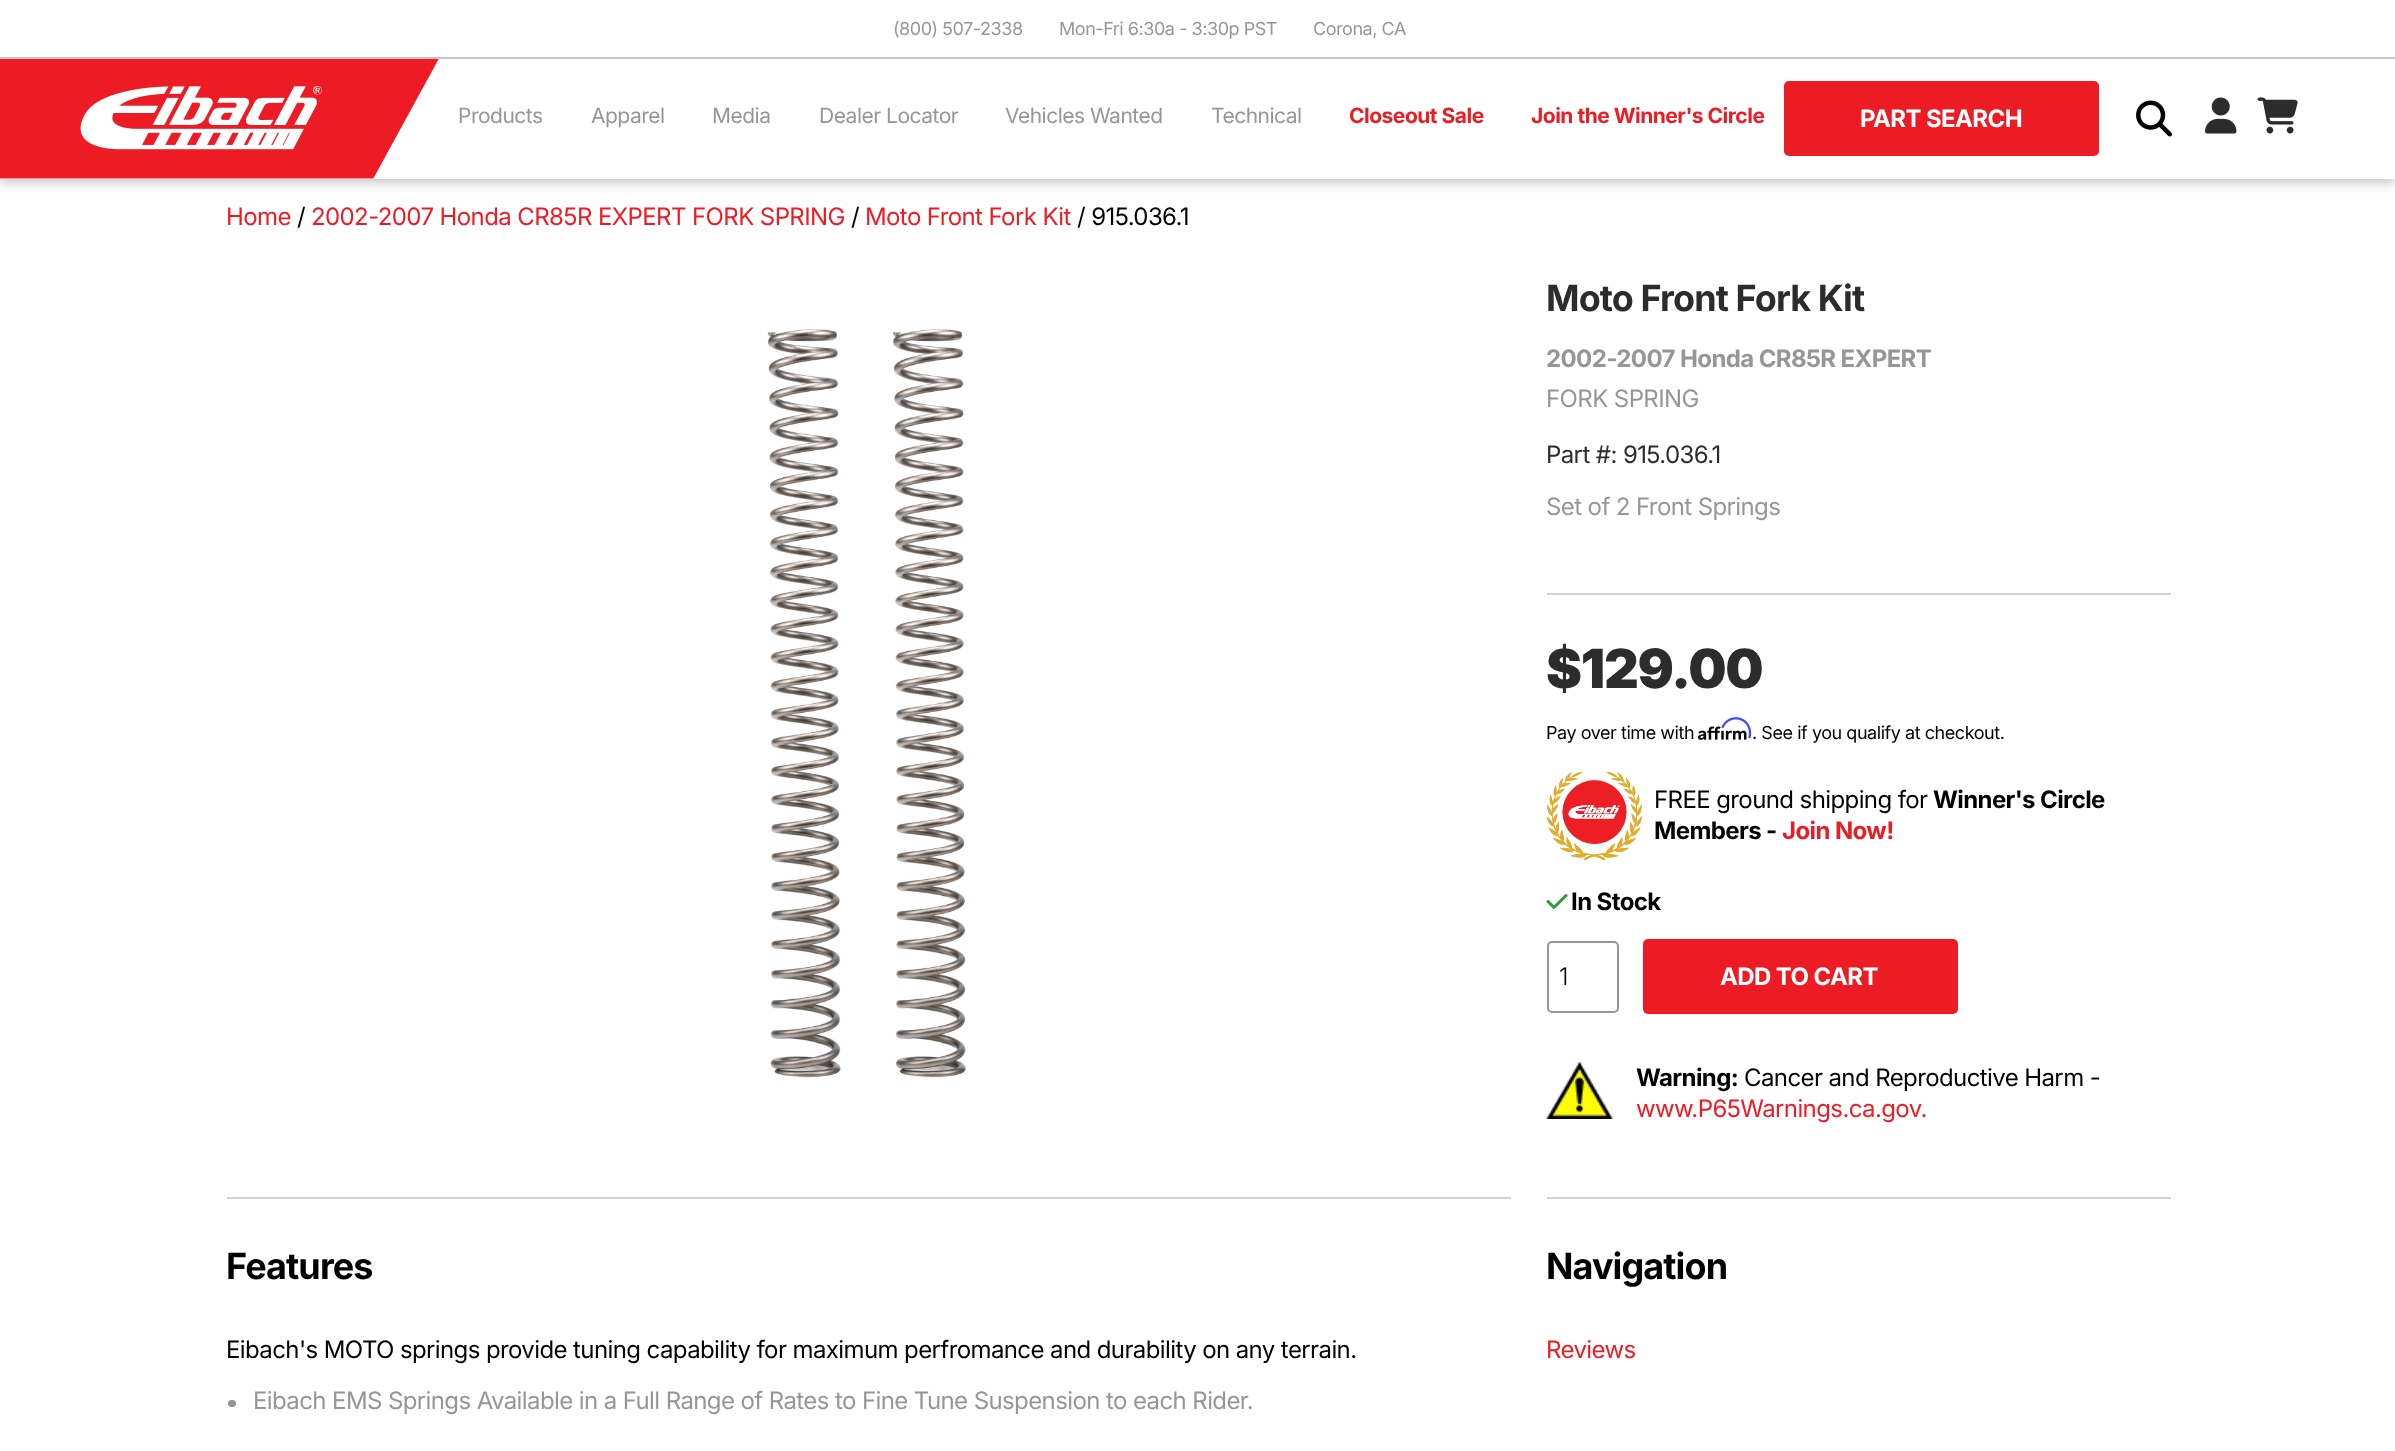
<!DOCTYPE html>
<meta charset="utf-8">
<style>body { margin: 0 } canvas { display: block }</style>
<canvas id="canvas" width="2395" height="1451"></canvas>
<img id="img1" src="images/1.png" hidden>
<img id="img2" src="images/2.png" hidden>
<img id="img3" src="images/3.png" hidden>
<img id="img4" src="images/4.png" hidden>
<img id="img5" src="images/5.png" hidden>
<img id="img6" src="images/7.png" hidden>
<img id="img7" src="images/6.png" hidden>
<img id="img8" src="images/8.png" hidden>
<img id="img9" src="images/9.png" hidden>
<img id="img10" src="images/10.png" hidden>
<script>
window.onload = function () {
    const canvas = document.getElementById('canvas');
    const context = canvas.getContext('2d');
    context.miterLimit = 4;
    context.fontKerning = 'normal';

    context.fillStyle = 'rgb(255, 255, 255)';
    context.fillRect(0, 0, 2395, 1451);
    context.fillStyle = 'rgba(0, 0, 0, 0.25)';
    context.filter = 'blur(6px)';
    context.beginPath();
    context.rect(0, 3, 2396, 179);
    context.fill();
    context.filter = 'none';
    context.fillStyle = 'rgb(255, 255, 255)';
    context.fillRect(0, 0, 2395, 57);
    context.fillStyle = 'rgb(196, 196, 196)';
    context.fillRect(0, 57, 2395, 2);
    context.fillStyle = 'rgb(255, 255, 255)';
    context.fillRect(0, 59, 2395, 120);
    context.drawImage(document.getElementById('img1'), 0, 59, 439, 120);
    context.fillStyle = 'rgb(237, 28, 36)';
    context.beginPath();
    context.roundRect(1784, 81, 315, 75, 5);
    context.fill();
    context.drawImage(document.getElementById('img2'), 2136, 100, 36, 37);
    context.drawImage(document.getElementById('img3'), 2205, 97, 32, 37);
    context.drawImage(document.getElementById('img4'), 2257, 97, 41, 37);
    context.drawImage(document.getElementById('img5'), 767, 329, 199, 749);
    context.fillStyle = 'rgb(210, 210, 210)';
    context.fillRect(1547, 593, 624, 2);
    context.drawImage(document.getElementById('img6'), 1698, 726, 49, 14);
    context.drawImage(document.getElementById('img7'), 1721, 717, 31, 22);
    context.drawImage(document.getElementById('img8'), 1547, 772, 96, 88);
    context.drawImage(document.getElementById('img9'), 1546, 894, 22, 15);
    context.beginPath();
    context.roundRect(1548, 942, 70, 70, 4);
    context.strokeStyle = 'rgb(150, 150, 150)';
    context.lineWidth = 2;
    context.stroke();
    context.fillStyle = 'rgb(237, 28, 36)';
    context.beginPath();
    context.roundRect(1643, 939, 315, 75, 5);
    context.fill();
    context.drawImage(document.getElementById('img10'), 1546, 1062, 67, 57);
    context.fillStyle = 'rgb(210, 210, 210)';
    context.fillRect(227, 1197, 1284, 2);
    context.fillStyle = 'rgb(150, 150, 150)';
    context.beginPath();
    context.roundRect(228, 1400, 8, 7, 3.5);
    context.fill();
    context.fillStyle = 'rgb(210, 210, 210)';
    context.fillRect(1547, 1197, 624, 2);
    context.letterSpacing = '-0.45px';
    context.font = '18px Inter';
    context.fillStyle = 'rgb(150, 150, 150)';
    context.fillText('(800) 507-2338', 893, 35);
    context.fillText('Mon-Fri 6:30a - 3:30p PST', 1059, 35);
    context.fillText('Corona, CA', 1313, 35);
    context.letterSpacing = '-0.5px';
    context.font = '21px Inter';
    context.fillText('Products', 458, 123);
    context.fillText('Apparel', 591, 123);
    context.fillText('Media', 712, 123);
    context.fillText('Dealer Locator', 819, 123);
    context.fillText('Vehicles Wanted', 1005, 123);
    context.fillText('Technical', 1211, 123);
    context.font = 'bold 21px Inter';
    context.fillStyle = 'rgb(237, 28, 36)';
    context.fillText('Closeout Sale', 1349, 123);
    context.fillText('Join the Winner\'s Circle', 1531, 123);
    context.letterSpacing = '-0.6px';
    context.font = 'bold 24px Inter';
    context.fillStyle = 'rgb(255, 255, 255)';
    context.fillText('PART SEARCH', 1860, 127);
    context.font = '24px Inter';
    context.fillStyle = 'rgb(237, 28, 36)';
    context.fillText('Home', 226, 225);
    context.fillStyle = 'rgb(0, 0, 0)';
    context.fillText('/', 297, 225);
    context.fillStyle = 'rgb(237, 28, 36)';
    context.fillText('2002-2007 Honda CR85R EXPERT FORK SPRING', 311, 225);
    context.fillStyle = 'rgb(0, 0, 0)';
    context.fillText('/', 851, 225);
    context.fillStyle = 'rgb(237, 28, 36)';
    context.fillText('Moto Front Fork Kit', 865, 225);
    context.fillStyle = 'rgb(0, 0, 0)';
    context.fillText('/ 915.036.1', 1077, 225);
    context.letterSpacing = '-0.9px';
    context.font = 'bold 36px Inter';
    context.fillStyle = 'rgb(44, 44, 44)';
    context.fillText('Moto Front Fork Kit', 1546, 311);
    context.letterSpacing = '-0.6px';
    context.font = 'bold 24px Inter';
    context.fillStyle = 'rgb(150, 150, 150)';
    context.fillText('2002-2007 Honda CR85R EXPERT', 1546, 367);
    context.font = '24px Inter';
    context.fillText('FORK SPRING', 1546, 407);
    context.fillStyle = 'rgb(44, 44, 44)';
    context.fillText('Part #: 915.036.1', 1546, 463);
    context.fillStyle = 'rgb(150, 150, 150)';
    context.fillText('Set of 2 Front Springs', 1546, 515);
    context.letterSpacing = '-1.25px';
    context.font = '900 54px Inter';
    context.fillStyle = 'rgb(44, 44, 44)';
    context.fillText('$129.00', 1546, 688);
    context.letterSpacing = '-0.45px';
    context.font = '18px Inter';
    context.fillStyle = 'rgb(0, 0, 0)';
    context.fillText('Pay over time with', 1546, 739);
    context.fillText('. See if you qualify at checkout.', 1752, 739);
    context.letterSpacing = '-0.6px';
    context.font = '24px Inter';
    context.fillText('FREE ground shipping for', 1654, 808);
    context.font = 'bold 24px Inter';
    context.fillText('Winner\'s Circle', 1933, 808);
    context.fillText('Members -', 1654, 839);
    context.fillStyle = 'rgb(237, 28, 36)';
    context.fillText('Join Now!', 1782, 839);
    context.fillStyle = 'rgb(0, 0, 0)';
    context.fillText('In Stock', 1571, 910);
    context.font = '300 24px Inter';
    context.fillText('1', 1559, 985);
    context.font = 'bold 24px Inter';
    context.fillStyle = 'rgb(255, 255, 255)';
    context.fillText('ADD TO CART', 1720, 985);
    context.fillStyle = 'rgb(0, 0, 0)';
    context.fillText('Warning:', 1636, 1086);
    context.font = '24px Inter';
    context.fillText('Cancer and Reproductive Harm -', 1744, 1086);
    context.fillStyle = 'rgb(237, 28, 36)';
    context.fillText('www.P65Warnings.ca.gov.', 1636, 1117);
    context.letterSpacing = '-0.9px';
    context.font = 'bold 36px Inter';
    context.fillStyle = 'rgb(0, 0, 0)';
    context.fillText('Features', 226, 1279);
    context.letterSpacing = '-0.6px';
    context.font = '24px Inter';
    context.fillText('Eibach\'s MOTO springs provide tuning capability for maximum perfromance and durability on any terrain.', 226, 1358);
    context.fillStyle = 'rgb(150, 150, 150)';
    context.fillText('Eibach EMS Springs Available in a Full Range of Rates to Fine Tune Suspension to each Rider.', 253, 1409);
    context.letterSpacing = '-0.9px';
    context.font = 'bold 36px Inter';
    context.fillStyle = 'rgb(0, 0, 0)';
    context.fillText('Navigation', 1546, 1279);
    context.letterSpacing = '-0.6px';
    context.font = '24px Inter';
    context.fillStyle = 'rgb(237, 28, 36)';
    context.fillText('Reviews', 1546, 1358);
};
</script>
